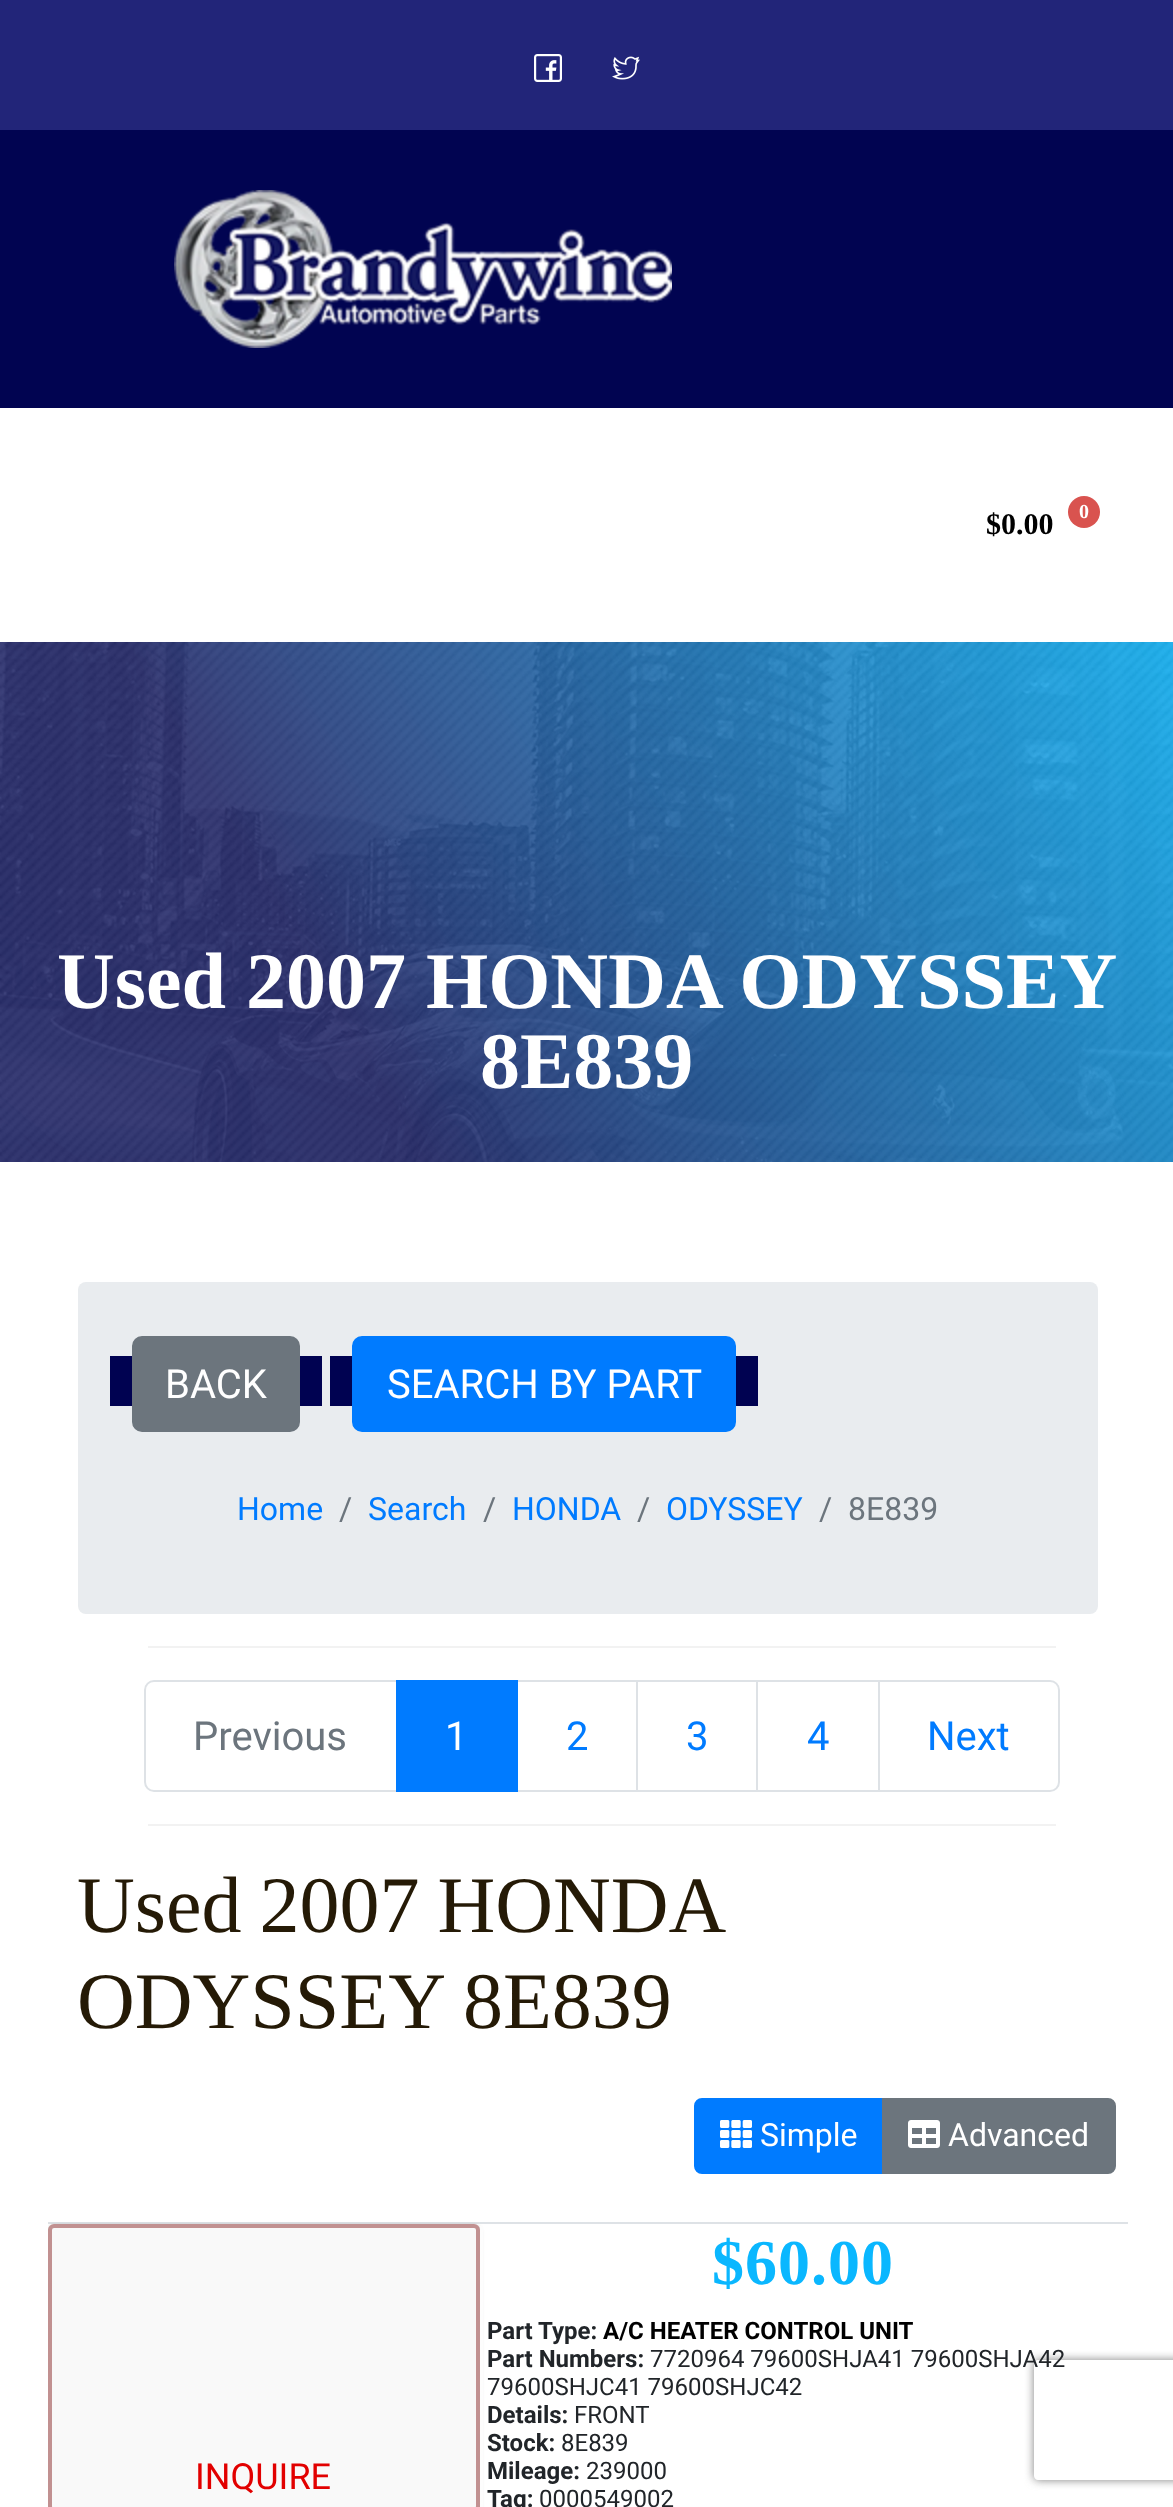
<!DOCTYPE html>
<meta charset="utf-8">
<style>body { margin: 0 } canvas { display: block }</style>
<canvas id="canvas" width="1173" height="2507"></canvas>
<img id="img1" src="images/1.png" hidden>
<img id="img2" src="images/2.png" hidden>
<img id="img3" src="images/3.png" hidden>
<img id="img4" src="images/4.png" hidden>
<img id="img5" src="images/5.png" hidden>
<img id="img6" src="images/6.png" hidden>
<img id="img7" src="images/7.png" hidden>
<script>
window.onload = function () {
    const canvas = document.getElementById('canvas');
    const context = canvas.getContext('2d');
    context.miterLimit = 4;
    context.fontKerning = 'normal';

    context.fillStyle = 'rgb(255, 255, 255)';
    context.fillRect(0, 0, 1173, 2507);
    context.fillStyle = 'rgb(34, 37, 121)';
    context.fillRect(0, 0, 1173, 130);
    context.drawImage(document.getElementById('img1'), 534, 54, 28, 28);
    context.drawImage(document.getElementById('img2'), 612, 56, 28, 24);
    context.fillStyle = 'rgb(1, 4, 81)';
    context.fillRect(0, 130, 1173, 278);
    context.drawImage(document.getElementById('img3'), 174, 190, 498, 158);
    context.fillStyle = 'rgb(217, 83, 79)';
    context.beginPath();
    context.arc(1084, 512, 16, 0, 2 * Math.PI);
    context.fill();
    context.drawImage(document.getElementById('img4'), 0, 642, 1173, 520);
    context.drawImage(document.getElementById('img5'), 0, 642, 1173, 520);
    context.fillStyle = 'rgb(233, 236, 239)';
    context.beginPath();
    context.roundRect(78, 1282, 1020, 332, 8);
    context.fill();
    context.fillStyle = 'rgb(0, 2, 81)';
    context.fillRect(110, 1356, 212, 50);
    context.fillStyle = 'rgb(108, 117, 125)';
    context.beginPath();
    context.roundRect(133, 1337, 166, 94, 9);
    context.fill();
    context.strokeStyle = 'rgb(108, 117, 125)';
    context.lineWidth = 2;
    context.stroke();
    context.fillStyle = 'rgb(0, 2, 81)';
    context.fillRect(330, 1356, 428, 50);
    context.fillStyle = 'rgb(0, 123, 255)';
    context.beginPath();
    context.roundRect(353, 1337, 382, 94, 9);
    context.fill();
    context.strokeStyle = 'rgb(0, 123, 255)';
    context.stroke();
    context.fillStyle = 'rgb(242, 242, 242)';
    context.fillRect(148, 1646, 908, 2);
    context.fillRect(148, 1824, 908, 2);
    context.beginPath();
    context.roundRect(145, 1681, 252, 110, [9, 0, 0, 9]);
    context.strokeStyle = 'rgb(222, 226, 230)';
    context.stroke();
    context.strokeRect(517, 1681, 120, 110);
    context.fillStyle = 'rgb(0, 123, 255)';
    context.fillRect(396, 1680, 122, 112);
    context.strokeRect(637, 1681, 120, 110);
    context.strokeRect(757, 1681, 122, 110);
    context.fillStyle = 'rgb(255, 255, 255)';
    context.beginPath();
    context.roundRect(879, 1681, 180, 110, [0, 9, 9, 0]);
    context.fill();
    context.stroke();
    context.fillStyle = 'rgb(0, 123, 255)';
    context.beginPath();
    context.roundRect(695, 2099, 188, 74, [7, 0, 0, 7]);
    context.fill();
    context.strokeStyle = 'rgb(0, 123, 255)';
    context.stroke();
    context.drawImage(document.getElementById('img6'), 720, 2120, 32, 28);
    context.fillStyle = 'rgb(108, 117, 125)';
    context.beginPath();
    context.roundRect(883, 2099, 232, 74, [0, 7, 7, 0]);
    context.fill();
    context.strokeStyle = 'rgb(108, 117, 125)';
    context.stroke();
    context.drawImage(document.getElementById('img7'), 908, 2120, 32, 28);
    context.fillStyle = 'rgb(222, 226, 230)';
    context.fillRect(48, 2222, 432, 2);
    context.save();
    context.beginPath();
    context.rect(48, 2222, 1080, 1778);
    context.clip();
    context.fillStyle = 'rgba(0, 0, 0, 0.3)';
    context.filter = 'blur(2px)';
    context.beginPath();
    context.roundRect(48, 2226, 432, 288, 6);
    context.fill();
    context.filter = 'none';
    context.restore();
    context.fillStyle = 'rgb(249, 249, 249)';
    context.beginPath();
    context.roundRect(50, 2226, 428, 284, 4);
    context.fill();
    context.strokeStyle = 'rgb(193, 145, 145)';
    context.lineWidth = 4;
    context.stroke();
    context.fillStyle = 'rgb(253, 253, 253)';
    context.fillRect(480, 2226, 3, 281);
    context.fillStyle = 'rgb(222, 226, 230)';
    context.fillRect(480, 2222, 648, 2);
    context.save();
    context.beginPath();
    context.moveTo(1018, 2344);
    context.lineTo(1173, 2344);
    context.lineTo(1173, 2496);
    context.lineTo(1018, 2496);
    context.closePath();
    context.moveTo(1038, 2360);
    context.lineTo(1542, 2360);
    context.bezierCurveTo(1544, 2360, 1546, 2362, 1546, 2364);
    context.lineTo(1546, 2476);
    context.bezierCurveTo(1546, 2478, 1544, 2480, 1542, 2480);
    context.lineTo(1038, 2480);
    context.bezierCurveTo(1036, 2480, 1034, 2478, 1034, 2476);
    context.lineTo(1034, 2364);
    context.bezierCurveTo(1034, 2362, 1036, 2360, 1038, 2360);
    context.closePath();
    context.clip('evenodd');
    context.fillStyle = 'rgb(128, 128, 128)';
    context.filter = 'blur(5px)';
    context.beginPath();
    context.roundRect(1034, 2360, 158, 120, 4);
    context.fill();
    context.filter = 'none';
    context.restore();
    context.font = 'bold 30px Liberation Serif';
    context.fillStyle = 'rgb(0, 0, 0)';
    context.fillText('$0.00', 986, 534);
    context.font = 'bold 20px Liberation Serif';
    context.fillStyle = 'rgb(255, 255, 255)';
    context.fillText('0', 1079, 518);
    context.font = 'bold 80px Liberation Serif';
    context.fillText('Used 2007 HONDA ODYSSEY', 57, 1008);
    context.fillText('8E839', 480, 1088);
    context.font = '40px Roboto';
    context.fillText('BACK', 165, 1398);
    context.fillText('SEARCH BY PART', 387, 1398);
    context.font = '32px Roboto';
    context.fillStyle = 'rgb(0, 123, 255)';
    context.fillText('Home', 237, 1520);
    context.fillStyle = 'rgb(108, 117, 125)';
    context.fillText('/', 339, 1520);
    context.fillStyle = 'rgb(0, 123, 255)';
    context.fillText('Search', 368, 1520);
    context.fillStyle = 'rgb(108, 117, 125)';
    context.fillText('/', 483, 1520);
    context.fillStyle = 'rgb(0, 123, 255)';
    context.fillText('HONDA', 512, 1520);
    context.fillStyle = 'rgb(108, 117, 125)';
    context.fillText('/', 637, 1520);
    context.fillStyle = 'rgb(0, 123, 255)';
    context.fillText('ODYSSEY', 666, 1520);
    context.fillStyle = 'rgb(108, 117, 125)';
    context.fillText('/', 819, 1520);
    context.fillText('8E839', 848, 1520);
    context.font = '40px Roboto';
    context.fillText('Previous', 193, 1750);
    context.fillStyle = 'rgb(255, 255, 255)';
    context.fillText('1', 445, 1750);
    context.fillStyle = 'rgb(0, 123, 255)';
    context.fillText('2', 566, 1750);
    context.fillText('3', 686, 1750);
    context.fillText('4', 807, 1750);
    context.fillText('Next', 927, 1750);
    context.wordSpacing = '-2px';
    context.font = '80px Liberation Serif';
    context.fillStyle = 'rgb(37, 26, 6)';
    context.fillText('Used 2007 HONDA', 77, 1932);
    context.wordSpacing = '0px';
    context.fillText('ODYSSEY 8E839', 77, 2028);
    context.font = '32px Roboto';
    context.fillStyle = 'rgb(255, 255, 255)';
    context.fillText('Simple', 760, 2146);
    context.fillText('Advanced', 948, 2146);
    context.font = '36px Roboto';
    context.fillStyle = 'rgb(226, 0, 0)';
    context.fillText('INQUIRE', 195, 2489);
    context.letterSpacing = '1px';
    context.font = 'bold 64px Liberation Serif';
    context.fillStyle = 'rgb(10, 183, 255)';
    context.fillText('$60.00', 712, 2284);
    context.letterSpacing = '0px';
    context.font = 'bold 24px Roboto';
    context.fillStyle = 'rgb(33, 37, 41)';
    context.fillText('Part Type:', 487, 2339);
    context.fillStyle = 'rgb(0, 0, 0)';
    context.fillText('A/C HEATER CONTROL UNIT', 603, 2339);
    context.fillStyle = 'rgb(33, 37, 41)';
    context.fillText('Part Numbers:', 487, 2367);
    context.font = '24px Roboto';
    context.fillText('7720964 79600SHJA41 79600SHJA42', 650, 2367);
    context.fillText('79600SHJC41 79600SHJC42', 487, 2395);
    context.font = 'bold 24px Roboto';
    context.fillText('Details:', 487, 2423);
    context.font = '24px Roboto';
    context.fillText('FRONT', 574, 2423);
    context.font = 'bold 24px Roboto';
    context.fillText('Stock:', 487, 2451);
    context.font = '24px Roboto';
    context.fillText('8E839', 561, 2451);
    context.font = 'bold 24px Roboto';
    context.fillText('Mileage:', 487, 2479);
    context.font = '24px Roboto';
    context.fillText('239000', 586, 2479);
    context.font = 'bold 24px Roboto';
    context.fillText('Tag:', 487, 2507);
    context.font = '24px Roboto';
    context.fillText('0000549002', 539, 2507);
};
</script>
